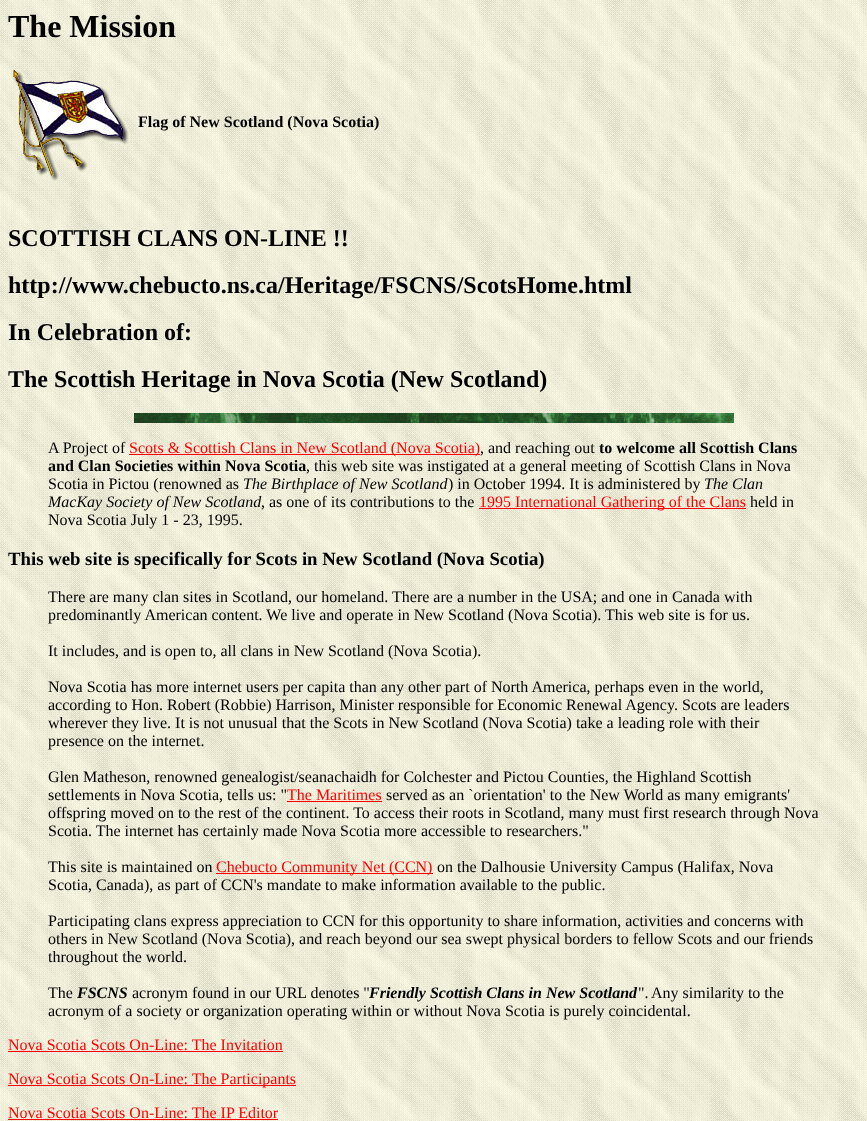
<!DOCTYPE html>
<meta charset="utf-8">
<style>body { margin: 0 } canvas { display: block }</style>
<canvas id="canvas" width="867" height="1121"></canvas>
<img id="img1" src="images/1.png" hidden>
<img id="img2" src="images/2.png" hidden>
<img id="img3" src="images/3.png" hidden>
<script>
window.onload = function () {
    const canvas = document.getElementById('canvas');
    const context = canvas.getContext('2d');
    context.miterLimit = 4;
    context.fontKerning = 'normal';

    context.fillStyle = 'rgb(255, 255, 255)';
    context.fillRect(0, 0, 867, 1121);
    context.drawImage(document.getElementById('img1'), 0, 0, 867, 1121);
    context.drawImage(document.getElementById('img2'), 12, 69, 118, 113);
    context.drawImage(document.getElementById('img3'), 134, 413, 600, 10);
    context.fillStyle = 'rgb(255, 0, 0)';
    context.fillRect(129, 454, 351, 1);
    context.fillRect(479, 508, 267, 1);
    context.fillRect(287, 801, 95, 1);
    context.fillRect(216, 873, 217, 1);
    context.fillRect(8, 1051, 275, 1);
    context.fillRect(8, 1085, 288, 1);
    context.fillRect(8, 1119, 270, 1);
    context.font = 'bold 32px Liberation Serif';
    context.fillStyle = 'rgb(0, 0, 0)';
    context.fillText('The Mission', 8, 37);
    context.font = 'bold 16px Liberation Serif';
    context.fillText('Flag of New Scotland (Nova Scotia)', 138, 127);
    context.font = 'bold 24px Liberation Serif';
    context.fillText('SCOTTISH CLANS ON-LINE !!', 8, 246);
    context.fillText('http://www.chebucto.ns.ca/Heritage/FSCNS/ScotsHome.html', 8, 293);
    context.fillText('In Celebration of:', 8, 340);
    context.fillText('The Scottish Heritage in Nova Scotia (New Scotland)', 8, 387);
    context.font = '16px Liberation Serif';
    context.fillText('A Project of', 48, 453);
    context.fillStyle = 'rgb(255, 0, 0)';
    context.fillText('Scots & Scottish Clans in New Scotland (Nova Scotia)', 129, 453);
    context.fillStyle = 'rgb(0, 0, 0)';
    context.fillText(', and reaching out', 480, 453);
    context.font = 'bold 16px Liberation Serif';
    context.fillText('to welcome all Scottish Clans', 599, 453);
    context.fillText('and Clan Societies within Nova Scotia', 48, 471);
    context.font = '16px Liberation Serif';
    context.fillText(', this web site was instigated at a general meeting of Scottish Clans in Nova', 306, 471);
    context.fillText('Scotia in Pictou (renowned as', 48, 489);
    context.font = 'italic 16px Liberation Serif';
    context.fillText('The Birthplace of New Scotland', 243, 489);
    context.font = '16px Liberation Serif';
    context.fillText(') in October 1994. It is administered by', 448, 489);
    context.font = 'italic 16px Liberation Serif';
    context.fillText('The Clan', 704, 489);
    context.fillText('MacKay Society of New Scotland', 48, 507);
    context.font = '16px Liberation Serif';
    context.fillText(', as one of its contributions to the', 261, 507);
    context.fillStyle = 'rgb(255, 0, 0)';
    context.fillText('1995 International Gathering of the Clans', 479, 507);
    context.fillStyle = 'rgb(0, 0, 0)';
    context.fillText('held in', 750, 507);
    context.fillText('Nova Scotia July 1 - 23, 1995.', 48, 525);
    context.font = 'bold 18.75px Liberation Serif';
    context.fillText('This web site is specifically for Scots in New Scotland (Nova Scotia)', 8, 565);
    context.font = '16px Liberation Serif';
    context.fillText('There are many clan sites in Scotland, our homeland. There are a number in the USA; and one in Canada with', 48, 602);
    context.fillText('predominantly American content. We live and operate in New Scotland (Nova Scotia). This web site is for us.', 48, 620);
    context.fillText('It includes, and is open to, all clans in New Scotland (Nova Scotia).', 48, 656);
    context.fillText('Nova Scotia has more internet users per capita than any other part of North America, perhaps even in the world,', 48, 692);
    context.fillText('according to Hon. Robert (Robbie) Harrison, Minister responsible for Economic Renewal Agency. Scots are leaders', 48, 710);
    context.fillText('wherever they live. It is not unusual that the Scots in New Scotland (Nova Scotia) take a leading role with their', 48, 728);
    context.fillText('presence on the internet.', 48, 746);
    context.fillText('Glen Matheson, renowned genealogist/seanachaidh for Colchester and Pictou Counties, the Highland Scottish', 48, 782);
    context.fillText('settlements in Nova Scotia, tells us: "', 48, 800);
    context.fillStyle = 'rgb(255, 0, 0)';
    context.fillText('The Maritimes', 287, 800);
    context.fillStyle = 'rgb(0, 0, 0)';
    context.fillText('served as an `orientation\' to the New World as many emigrants\'', 386, 800);
    context.fillText('offspring moved on to the rest of the continent. To access their roots in Scotland, many must first research through Nova', 48, 818);
    context.fillText('Scotia. The internet has certainly made Nova Scotia more accessible to researchers."', 48, 836);
    context.fillText('This site is maintained on', 48, 872);
    context.fillStyle = 'rgb(255, 0, 0)';
    context.fillText('Chebucto Community Net (CCN)', 216, 872);
    context.fillStyle = 'rgb(0, 0, 0)';
    context.fillText('on the Dalhousie University Campus (Halifax, Nova', 437, 872);
    context.fillText('Scotia, Canada), as part of CCN\'s mandate to make information available to the public.', 48, 890);
    context.fillText('Participating clans express appreciation to CCN for this opportunity to share information, activities and concerns with', 48, 926);
    context.fillText('others in New Scotland (Nova Scotia), and reach beyond our sea swept physical borders to fellow Scots and our friends', 48, 944);
    context.fillText('throughout the world.', 48, 962);
    context.fillText('The', 48, 998);
    context.font = 'italic bold 16px Liberation Serif';
    context.fillText('FSCNS', 77, 998);
    context.font = '16px Liberation Serif';
    context.fillText('acronym found in our URL denotes "', 132, 998);
    context.font = 'italic bold 16px Liberation Serif';
    context.fillText('Friendly Scottish Clans in New Scotland', 369, 998);
    context.font = '16px Liberation Serif';
    context.fillText('".', 638, 998);
    context.fillText('Any similarity to the', 651, 998);
    context.fillText('acronym of a society or organization operating within or without Nova Scotia is purely coincidental.', 48, 1016);
    context.fillStyle = 'rgb(255, 0, 0)';
    context.fillText('Nova Scotia Scots On-Line: The Invitation', 8, 1050);
    context.fillText('Nova Scotia Scots On-Line: The Participants', 8, 1084);
    context.fillText('Nova Scotia Scots On-Line: The IP Editor', 8, 1118);
};
</script>
